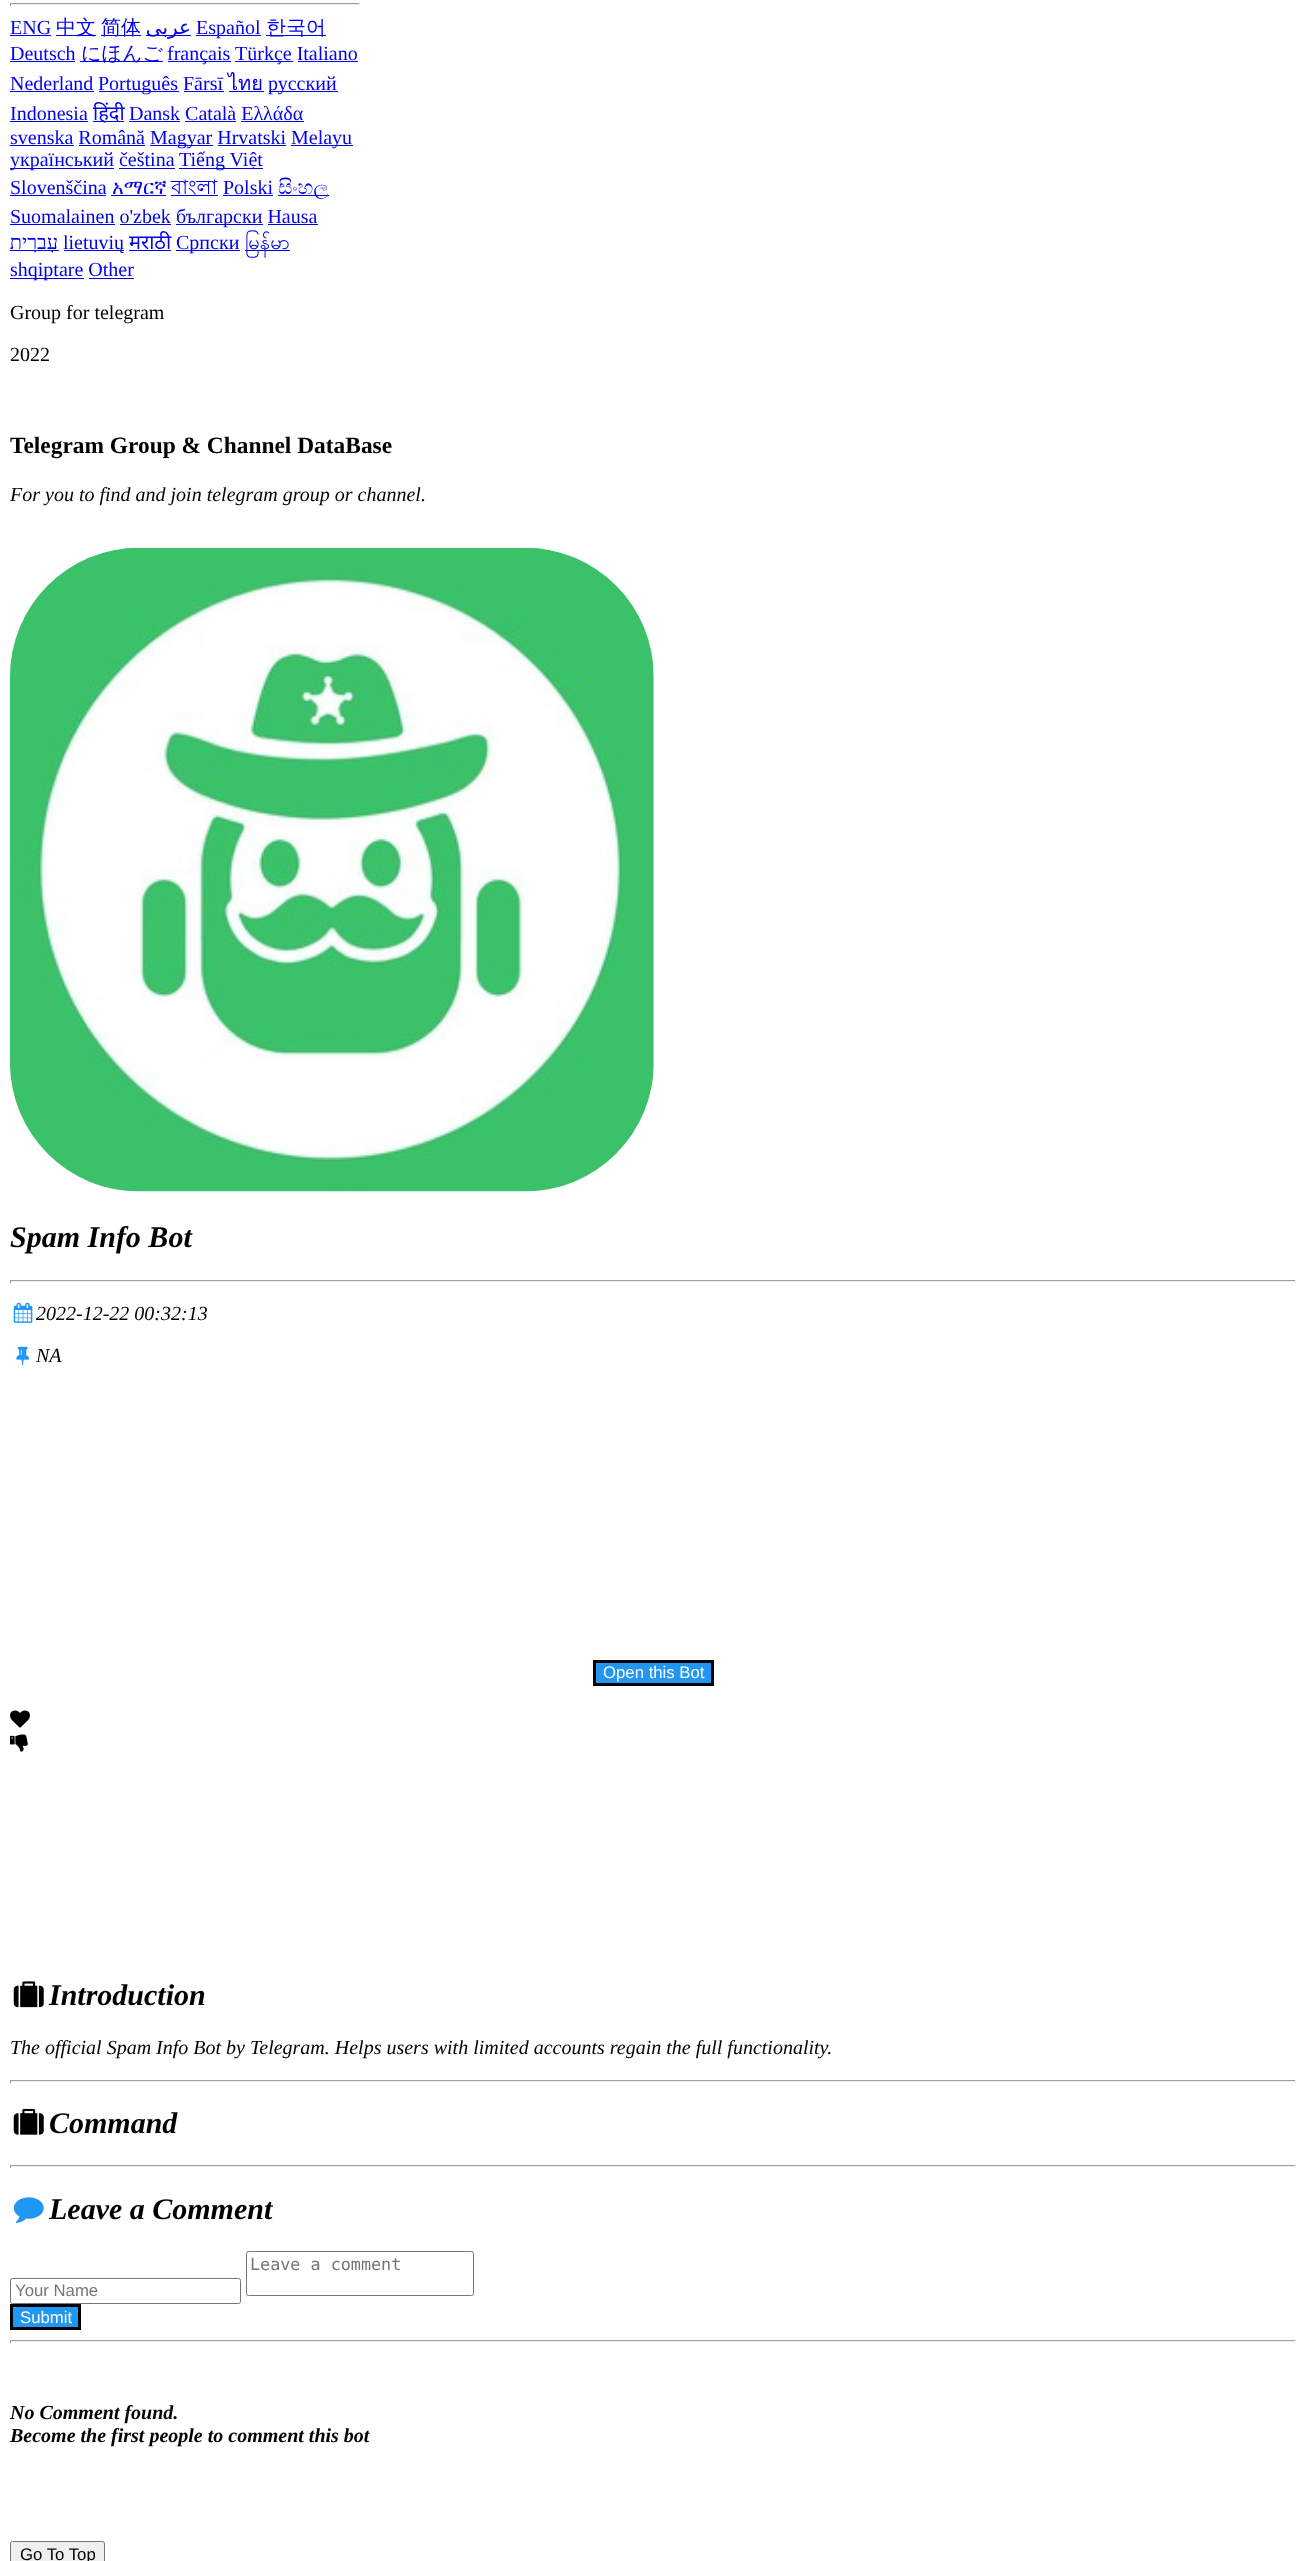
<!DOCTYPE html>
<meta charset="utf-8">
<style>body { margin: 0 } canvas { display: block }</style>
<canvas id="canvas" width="1306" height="2561"></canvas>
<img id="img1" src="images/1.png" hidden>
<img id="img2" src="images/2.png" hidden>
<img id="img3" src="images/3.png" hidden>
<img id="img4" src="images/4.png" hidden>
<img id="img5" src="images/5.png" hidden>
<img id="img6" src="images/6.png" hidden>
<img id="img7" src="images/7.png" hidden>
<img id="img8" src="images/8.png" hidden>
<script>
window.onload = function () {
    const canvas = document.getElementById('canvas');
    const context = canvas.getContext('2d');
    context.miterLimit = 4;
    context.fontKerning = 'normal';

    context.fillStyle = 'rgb(255, 255, 255)';
    context.fillRect(0, 0, 1306, 2561);
    context.fillStyle = 'rgb(159, 159, 159)';
    context.fillRect(10, 3, 350, 1);
    context.fillStyle = 'rgb(238, 238, 238)';
    context.fillRect(359, 3, 1, 3);
    context.fillRect(10, 4, 350, 1);
    context.fillStyle = 'rgb(159, 159, 159)';
    context.fillRect(10, 3, 1, 3);
    context.fillStyle = 'rgb(0, 0, 238)';
    context.fillRect(10, 35, 41, 1);
    context.fillRect(56, 35, 40, 1);
    context.fillRect(101, 35, 40, 1);
    context.fillRect(146, 35, 45, 1);
    context.fillRect(196, 35, 65, 1);
    context.fillRect(266, 35, 60, 1);
    context.fillRect(10, 61, 65, 1);
    context.fillRect(80, 61, 83, 1);
    context.fillRect(168, 61, 63, 1);
    context.fillRect(235, 61, 58, 1);
    context.fillRect(298, 61, 60, 1);
    context.fillRect(10, 91, 84, 1);
    context.fillRect(99, 91, 80, 1);
    context.fillRect(229, 91, 35, 1);
    context.fillRect(269, 91, 69, 1);
    context.fillRect(184, 91, 40, 1);
    context.fillRect(10, 121, 78, 1);
    context.fillRect(93, 121, 31, 1);
    context.fillRect(129, 121, 51, 1);
    context.fillRect(185, 121, 51, 1);
    context.fillRect(241, 121, 63, 1);
    context.fillRect(10, 145, 64, 1);
    context.fillRect(150, 145, 63, 1);
    context.fillRect(291, 145, 62, 1);
    context.fillRect(79, 145, 66, 1);
    context.fillRect(218, 145, 68, 1);
    context.fillRect(10, 168, 104, 1);
    context.fillRect(179, 168, 84, 1);
    context.fillRect(119, 168, 56, 1);
    context.fillRect(10, 195, 96, 1);
    context.fillRect(111, 195, 55, 1);
    context.fillRect(171, 195, 47, 1);
    context.fillRect(223, 195, 50, 1);
    context.fillRect(278, 195, 51, 1);
    context.fillRect(10, 224, 105, 1);
    context.fillRect(176, 224, 87, 1);
    context.fillRect(120, 224, 51, 1);
    context.fillRect(268, 224, 50, 1);
    context.fillRect(10, 250, 49, 1);
    context.fillRect(64, 250, 60, 1);
    context.fillRect(129, 250, 42, 1);
    context.fillRect(176, 250, 64, 1);
    context.fillRect(245, 250, 45, 1);
    context.fillRect(10, 278, 74, 1);
    context.fillRect(89, 278, 45, 1);
    context.drawImage(document.getElementById('img1'), 10, 547, 644, 645);
    context.fillStyle = 'rgb(159, 159, 159)';
    context.fillRect(10, 1280, 1286, 1);
    context.fillStyle = 'rgb(238, 238, 238)';
    context.fillRect(1295, 1280, 1, 3);
    context.fillRect(10, 1281, 1286, 1);
    context.fillStyle = 'rgb(159, 159, 159)';
    context.fillRect(10, 1280, 1, 3);
    context.drawImage(document.getElementById('img2'), 13, 1302, 20, 21);
    context.drawImage(document.getElementById('img3'), 16, 1346, 14, 20);
    context.fillStyle = 'rgb(33, 150, 243)';
    context.beginPath();
    context.rect(594.5, 1661.5, 118, 23);
    context.fill();
    context.strokeStyle = 'rgb(0, 0, 0)';
    context.lineWidth = 3;
    context.stroke();
    context.drawImage(document.getElementById('img4'), 10, 1710, 20, 18);
    context.drawImage(document.getElementById('img5'), 10, 1734, 18, 18);
    context.drawImage(document.getElementById('img6'), 13, 1981, 31, 27);
    context.fillStyle = 'rgb(159, 159, 159)';
    context.fillRect(10, 2080, 1286, 1);
    context.fillStyle = 'rgb(238, 238, 238)';
    context.fillRect(1295, 2080, 1, 3);
    context.fillRect(10, 2081, 1286, 1);
    context.fillStyle = 'rgb(159, 159, 159)';
    context.fillRect(10, 2080, 1, 3);
    context.drawImage(document.getElementById('img7'), 13, 2108, 31, 27);
    context.fillRect(10, 2165, 1286, 1);
    context.fillStyle = 'rgb(238, 238, 238)';
    context.fillRect(1295, 2165, 1, 3);
    context.fillRect(10, 2166, 1286, 1);
    context.fillStyle = 'rgb(159, 159, 159)';
    context.fillRect(10, 2165, 1, 3);
    context.drawImage(document.getElementById('img8'), 13, 2197, 31, 26);
    context.beginPath();
    context.roundRect(246.5, 2251.5, 227, 44, 2);
    context.strokeStyle = 'rgb(118, 118, 118)';
    context.lineWidth = 1;
    context.stroke();
    context.beginPath();
    context.roundRect(10.5, 2278.5, 230, 25, 2);
    context.stroke();
    context.fillStyle = 'rgb(33, 150, 243)';
    context.beginPath();
    context.rect(11.5, 2305.5, 68, 23);
    context.fill();
    context.strokeStyle = 'rgb(0, 0, 0)';
    context.lineWidth = 3;
    context.stroke();
    context.fillStyle = 'rgb(159, 159, 159)';
    context.fillRect(10, 2340, 1286, 1);
    context.fillStyle = 'rgb(238, 238, 238)';
    context.fillRect(1295, 2340, 1, 3);
    context.fillRect(10, 2341, 1286, 1);
    context.fillStyle = 'rgb(159, 159, 159)';
    context.fillRect(10, 2340, 1, 3);
    context.fillStyle = 'rgb(239, 239, 239)';
    context.beginPath();
    context.roundRect(10.5, 2541.5, 94, 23, 2);
    context.fill();
    context.strokeStyle = 'rgb(118, 118, 118)';
    context.lineWidth = 1;
    context.stroke();
    context.font = '20px Liberation Serif';
    context.fillStyle = 'rgb(0, 0, 238)';
    context.fillText('ENG', 10, 34);
    context.font = '500 20px WenQuanYi Zen Hei';
    context.fillText('中文', 56, 34);
    context.fillText('简体', 101, 34);
    context.direction = 'rtl';
    context.font = '20px DejaVu Sans';
    context.fillText('عربى', 191, 34);
    context.direction = 'ltr';
    context.font = '20px Liberation Serif';
    context.fillText('Español', 196, 34);
    context.font = '500 20px WenQuanYi Zen Hei';
    context.fillText('한국어', 266, 34);
    context.font = '20px Liberation Serif';
    context.fillText('Deutsch', 10, 60);
    context.font = '500 20px WenQuanYi Zen Hei';
    context.fillText('にほんご', 81, 60);
    context.font = '20px Liberation Serif';
    context.fillText('français', 167, 60);
    context.fillText('Türkçe Italiano', 235, 60);
    context.fillText('Nederland', 10, 90);
    context.fillText('Português Fārsī', 98, 90);
    context.font = '20px Loma';
    context.fillText('ไทย', 228, 90);
    context.font = '20px Liberation Serif';
    context.fillText('русский', 268, 90);
    context.fillText('Indonesia', 10, 120);
    context.font = '20px Noto Sans';
    context.fillText('हिंदी', 93, 120);
    context.font = '20px Liberation Serif';
    context.fillText('Dansk Català Ελλάδα', 129, 120);
    context.fillText('svenska Română', 10, 144);
    context.fillText('Magyar Hrvatski', 150, 144);
    context.fillText('Melayu', 291, 144);
    context.fillText('український čeština', 10, 166);
    context.fillText('Tiếng Việt', 179, 166);
    context.fillText('Slovenščina', 10, 194);
    context.font = '20px FreeSerif';
    context.fillText('አማርኛ', 112, 194);
    context.font = '20px Lohit Bengali';
    context.fillText('বাংলা', 171, 194);
    context.font = '20px Liberation Serif';
    context.fillText('Polski', 223, 194);
    context.font = '20px FreeSerif';
    context.fillText('සිංහල', 278, 194);
    context.font = '20px Liberation Serif';
    context.fillText('Suomalainen o\'zbek', 10, 223);
    context.fillText('български Hausa', 176, 223);
    context.direction = 'rtl';
    context.fillText('עִברִית', 58, 249);
    context.direction = 'ltr';
    context.fillText('lietuvių', 63, 249);
    context.font = '20px Noto Sans';
    context.fillText('मराठी', 129, 249);
    context.font = '20px Liberation Serif';
    context.fillText('Српски', 176, 249);
    context.font = '20px Padauk';
    context.fillText('မြန်မာ', 245, 249);
    context.font = '20px Liberation Serif';
    context.fillText('shqiptare Other', 10, 276);
    context.fillStyle = 'rgb(0, 0, 0)';
    context.fillText('Group for telegram', 10, 319);
    context.fillText('2022', 10, 361);
    context.font = 'bold 23.4px Liberation Serif';
    context.fillText('Telegram Group & Channel DataBase', 10, 453);
    context.font = 'italic 20px Liberation Serif';
    context.fillText('For you to find and join telegram group or channel.', 10, 501);
    context.font = 'italic bold 30px Liberation Serif';
    context.fillText('Spam Info Bot', 10, 1247);
    context.font = 'italic 20px Liberation Serif';
    context.fillText('2022-12-22 00:32:13', 36, 1320);
    context.fillText('NA', 36, 1362);
    context.font = '16.75px Liberation Sans';
    context.fillStyle = 'rgb(255, 255, 255)';
    context.fillText('Open this Bot', 603, 1678);
    context.font = 'italic bold 30px Liberation Serif';
    context.fillStyle = 'rgb(0, 0, 0)';
    context.fillText('Introduction', 49, 2005);
    context.font = 'italic 20px Liberation Serif';
    context.fillText('The official Spam Info Bot by Telegram. Helps users with limited accounts regain the full functionality.', 10, 2054);
    context.font = 'italic bold 30px Liberation Serif';
    context.fillText('Command', 49, 2133);
    context.fillText('Leave a Comment', 49, 2219);
    context.font = '16.75px DejaVu Sans Mono';
    context.fillStyle = 'rgb(117, 117, 117)';
    context.fillText('Leave a comment', 250, 2270);
    context.font = '16.75px Liberation Sans';
    context.fillText('Your Name', 15, 2296);
    context.fillStyle = 'rgb(255, 255, 255)';
    context.fillText('Submit', 20, 2323);
    context.font = 'italic bold 20px Liberation Serif';
    context.fillStyle = 'rgb(0, 0, 0)';
    context.fillText('No Comment found.', 10, 2419);
    context.fillText('Become the first people to comment this bot', 10, 2442);
    context.font = '16.75px Liberation Sans';
    context.fillText('Go To Top', 20, 2560);
};
</script>
